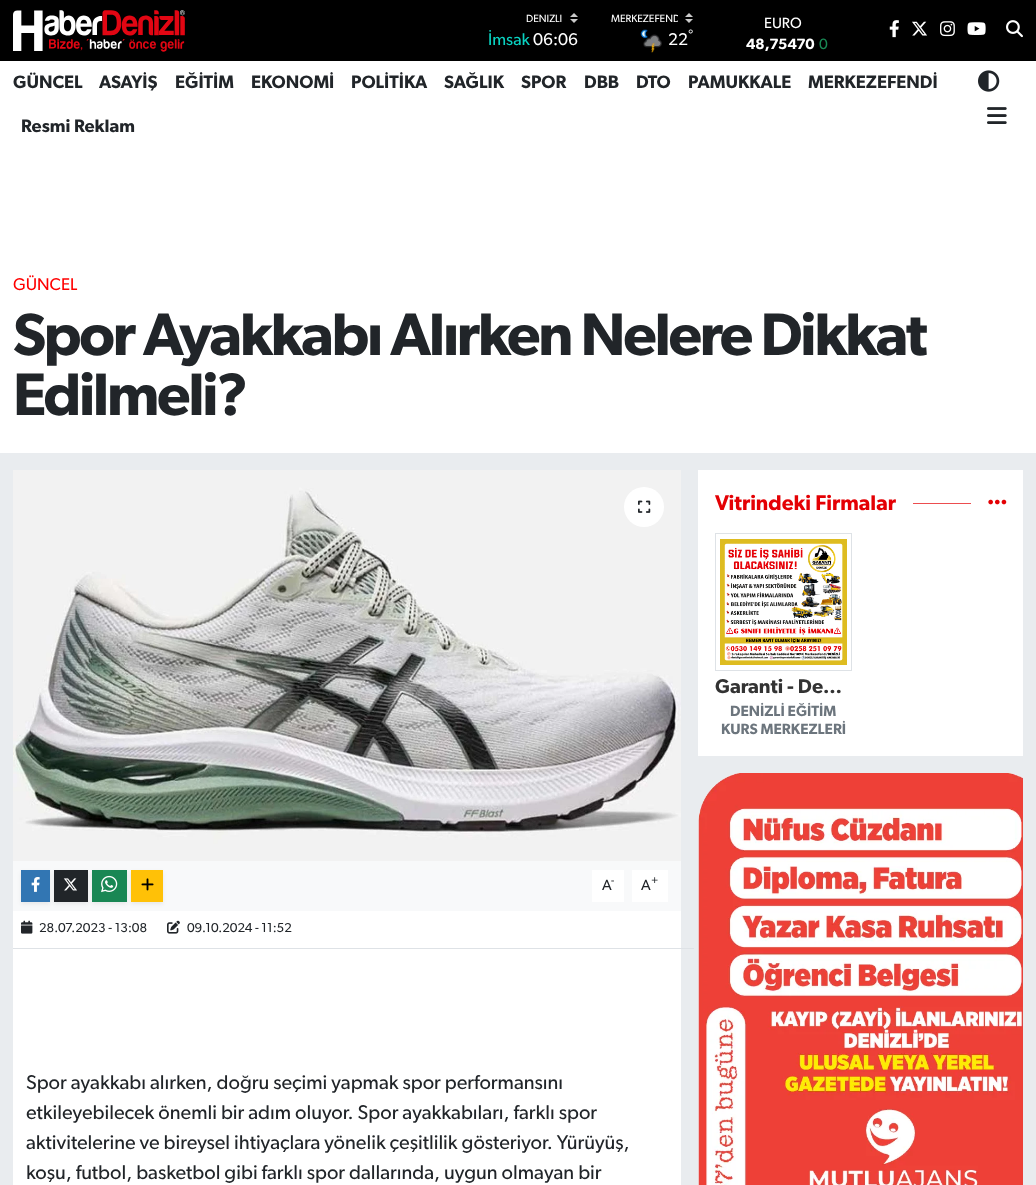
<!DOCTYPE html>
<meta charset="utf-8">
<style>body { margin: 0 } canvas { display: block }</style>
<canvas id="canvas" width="1036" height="1185"></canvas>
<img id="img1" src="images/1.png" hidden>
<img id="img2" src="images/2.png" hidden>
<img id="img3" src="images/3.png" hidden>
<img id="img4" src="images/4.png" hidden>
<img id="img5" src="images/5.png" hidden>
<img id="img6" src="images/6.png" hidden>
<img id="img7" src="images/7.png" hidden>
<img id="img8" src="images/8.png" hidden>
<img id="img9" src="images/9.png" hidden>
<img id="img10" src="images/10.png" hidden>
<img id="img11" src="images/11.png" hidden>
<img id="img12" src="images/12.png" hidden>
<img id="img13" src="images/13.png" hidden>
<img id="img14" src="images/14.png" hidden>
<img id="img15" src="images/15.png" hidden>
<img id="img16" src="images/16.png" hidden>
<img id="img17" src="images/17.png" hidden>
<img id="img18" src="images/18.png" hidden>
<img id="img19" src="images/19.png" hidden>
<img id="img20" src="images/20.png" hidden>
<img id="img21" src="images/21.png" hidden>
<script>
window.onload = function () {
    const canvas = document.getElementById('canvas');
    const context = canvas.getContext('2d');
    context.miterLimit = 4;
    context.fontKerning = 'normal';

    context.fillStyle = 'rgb(233, 236, 239)';
    context.fillRect(0, 0, 1036, 1185);
    context.fillStyle = 'rgb(0, 0, 0)';
    context.fillRect(0, 0, 1036, 61);
    context.drawImage(document.getElementById('img1'), 13, 10, 172, 42);
    context.drawImage(document.getElementById('img2'), 570, 13, 8, 10);
    context.drawImage(document.getElementById('img2'), 685, 13, 8, 10);
    context.drawImage(document.getElementById('img3'), 640, 29, 22, 24);
    context.drawImage(document.getElementById('img4'), 889, 20, 10, 18);
    context.drawImage(document.getElementById('img5'), 912, 21, 15, 15);
    context.drawImage(document.getElementById('img6'), 940, 21, 15, 16);
    context.drawImage(document.getElementById('img7'), 967, 22, 19, 13);
    context.drawImage(document.getElementById('img8'), 1006, 20, 17, 18);
    context.fillStyle = 'rgb(255, 255, 255)';
    context.fillRect(0, 61, 1036, 392);
    context.drawImage(document.getElementById('img9'), 978, 70, 22, 22);
    context.drawImage(document.getElementById('img10'), 987, 107, 20, 17);
    context.fillRect(698, 470, 325, 286);
    context.fillStyle = 'rgb(236, 77, 79)';
    context.fillRect(913, 503, 58, 1);
    context.drawImage(document.getElementById('img11'), 988, 499, 19, 6);
    context.strokeStyle = 'rgb(222, 226, 230)';
    context.strokeRect(715.5, 533.5, 136, 137);
    context.drawImage(document.getElementById('img12'), 720, 539, 127, 126);
    context.drawImage(document.getElementById('img13'), 698, 773, 325, 412);
    context.fillStyle = 'rgb(255, 255, 255)';
    context.fillRect(13, 911, 668, 274);
    context.drawImage(document.getElementById('img14'), 13, 470, 668, 391);
    context.beginPath();
    context.arc(644, 507, 20, 0, 2 * Math.PI);
    context.fill();
    context.drawImage(document.getElementById('img15'), 638, 500, 13, 13);
    context.fillStyle = 'rgb(248, 249, 250)';
    context.fillRect(13, 861, 668, 50);
    context.fillStyle = 'rgba(0, 0, 0, 0.07)';
    context.filter = 'blur(2px)';
    context.beginPath();
    context.rect(21, 872, 29, 32);
    context.fill();
    context.filter = 'none';
    context.fillStyle = 'rgb(50, 118, 179)';
    context.fillRect(21, 870, 29, 32);
    context.drawImage(document.getElementById('img16'), 31, 877, 9, 15);
    context.fillStyle = 'rgba(0, 0, 0, 0.07)';
    context.filter = 'blur(2px)';
    context.beginPath();
    context.rect(54, 872, 34, 32);
    context.fill();
    context.filter = 'none';
    context.fillStyle = 'rgb(33, 37, 41)';
    context.fillRect(54, 870, 34, 32);
    context.drawImage(document.getElementById('img17'), 63, 878, 14, 13);
    context.fillStyle = 'rgba(0, 0, 0, 0.07)';
    context.filter = 'blur(2px)';
    context.beginPath();
    context.rect(92, 872, 35, 32);
    context.fill();
    context.filter = 'none';
    context.fillStyle = 'rgb(25, 135, 84)';
    context.fillRect(92, 870, 35, 32);
    context.drawImage(document.getElementById('img18'), 101, 875, 17, 18);
    context.fillStyle = 'rgba(0, 0, 0, 0.07)';
    context.filter = 'blur(2px)';
    context.beginPath();
    context.rect(131, 872, 32, 32);
    context.fill();
    context.filter = 'none';
    context.fillStyle = 'rgb(255, 193, 7)';
    context.fillRect(131, 870, 32, 32);
    context.drawImage(document.getElementById('img19'), 141, 878, 13, 13);
    context.fillStyle = 'rgb(255, 255, 255)';
    context.fillRect(592, 870, 32, 32);
    context.fillRect(632, 870, 36, 32);
    context.fillStyle = 'rgb(222, 226, 230)';
    context.fillRect(13, 948, 681, 1);
    context.drawImage(document.getElementById('img20'), 21, 920, 12, 14);
    context.drawImage(document.getElementById('img21'), 167, 920, 13, 14);
    context.font = '10.5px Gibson';
    context.fillStyle = 'rgb(255, 255, 255)';
    context.fillText('DENIZLI', 526, 22);
    context.font = '17px Gibson';
    context.fillStyle = 'rgb(9, 210, 193)';
    context.fillText('İmsak', 488, 45);
    context.fillStyle = 'rgb(255, 255, 255)';
    context.fillText('06:06', 533, 45);
    context.save();
    context.beginPath();
    context.rect(611, 12, 67, 16);
    context.clip();
    context.font = '10.5px Gibson';
    context.fillText('MERKEZEFEND', 611, 22);
    context.restore();
    context.font = '13px Gibson';
    context.fillStyle = 'rgb(248, 249, 250)';
    context.fillText('°', 688, 39);
    context.font = '17px Gibson';
    context.fillStyle = 'rgb(255, 255, 255)';
    context.fillText('22', 668, 45);
    context.font = '14.9px Gibson';
    context.fillText('EURO', 764, 28);
    context.font = '600 14.9px Gibson';
    context.fillText('48,75470', 746, 49);
    context.font = '14.9px Gibson';
    context.fillStyle = 'rgb(25, 135, 84)';
    context.fillText('0', 819, 49);
    context.font = '600 18px Gibson';
    context.fillStyle = 'rgb(33, 37, 41)';
    context.fillText('GÜNCEL', 13, 88);
    context.fillText('ASAYİŞ', 99, 88);
    context.fillText('EĞİTİM', 175, 88);
    context.fillText('EKONOMİ', 251, 88);
    context.fillText('POLİTİKA', 351, 88);
    context.fillText('SAĞLIK', 444, 88);
    context.fillText('SPOR', 521, 88);
    context.fillText('DBB', 584, 88);
    context.fillText('DTO', 636, 88);
    context.fillText('PAMUKKALE', 688, 88);
    context.fillText('MERKEZEFENDİ', 808, 88);
    context.fillText('Resmi Reklam', 21, 132);
    context.font = '17px Gibson';
    context.fillStyle = 'rgb(255, 0, 0)';
    context.fillText('GÜNCEL', 13, 290);
    context.letterSpacing = '-2.3px';
    context.font = '600 60px Gibson';
    context.fillStyle = 'rgb(33, 37, 41)';
    context.fillText('Spor Ayakkabı Alırken Nelere Dikkat', 13, 355);
    context.fillText('Edilmeli?', 13, 415);
    context.letterSpacing = '0px';
    context.font = '600 21.25px Gibson';
    context.fillStyle = 'rgb(228, 0, 4)';
    context.fillText('Vitrindeki Firmalar', 715, 510);
    context.font = '600 20px Gibson';
    context.fillStyle = 'rgb(51, 51, 51)';
    context.fillText('Garanti - De…', 715, 693);
    context.font = '600 14.9px Gibson';
    context.fillStyle = 'rgb(108, 117, 125)';
    context.fillText('DENİZLİ EĞİTİM', 730, 716);
    context.fillText('KURS MERKEZLERİ', 721, 734);
    context.font = '14.9px Gibson';
    context.fillStyle = 'rgb(33, 37, 41)';
    context.fillText('A', 602, 890);
    context.font = '11px Gibson';
    context.fillText('-', 611, 884);
    context.font = '14.9px Gibson';
    context.fillText('A', 641, 890);
    context.font = '11px Gibson';
    context.fillText('+', 651, 884);
    context.font = '13px Gibson';
    context.fillText('28.07.2023 - 13:08', 39, 932);
    context.fillText('09.10.2024 - 11:52', 187, 932);
    context.font = '20px Gibson';
    context.fillText('Spor ayakkabı alırken, doğru seçimi yapmak spor performansını', 26, 1089);
    context.fillText('etkileyebilecek önemli bir adım oluyor. Spor ayakkabıları, farklı spor', 26, 1119);
    context.fillText('aktivitelerine ve bireysel ihtiyaçlara yönelik çeşitlilik gösteriyor. Yürüyüş,', 26, 1149);
    context.fillText('koşu, futbol, basketbol gibi farklı spor dallarında, uygun olmayan bir', 26, 1179);
};
</script>
